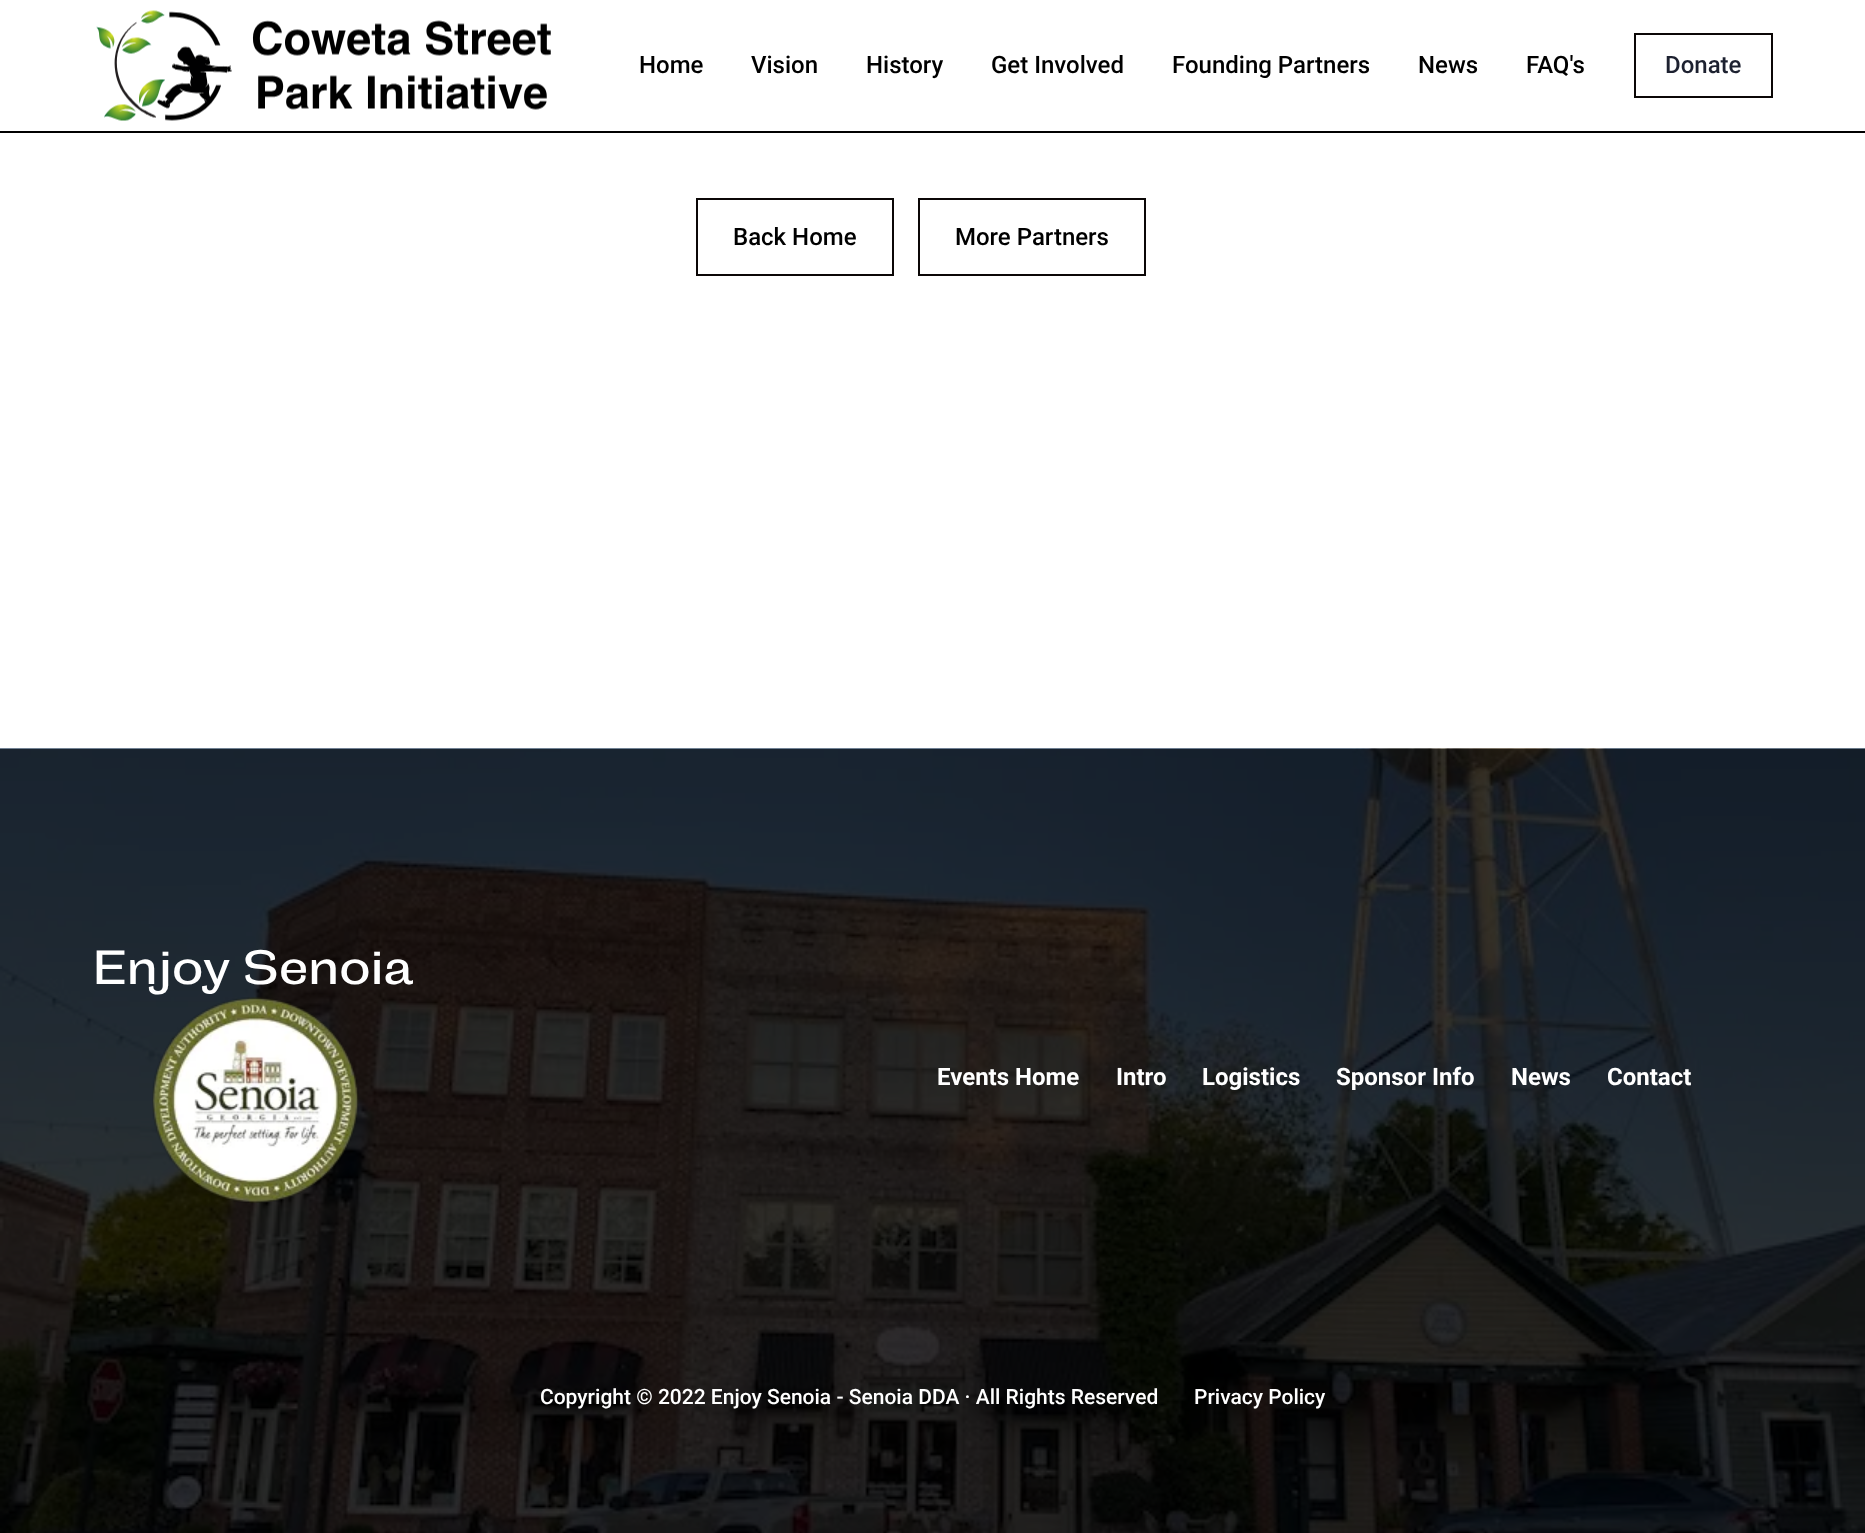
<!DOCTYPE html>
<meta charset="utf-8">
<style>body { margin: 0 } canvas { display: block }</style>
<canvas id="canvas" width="1865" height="1533"></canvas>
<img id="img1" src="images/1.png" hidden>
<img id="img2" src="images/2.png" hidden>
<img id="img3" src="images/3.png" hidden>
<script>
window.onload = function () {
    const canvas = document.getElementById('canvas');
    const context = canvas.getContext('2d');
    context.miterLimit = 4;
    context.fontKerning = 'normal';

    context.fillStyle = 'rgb(255, 255, 255)';
    context.fillRect(0, 0, 1865, 1533);
    context.fillStyle = 'rgb(0, 0, 0)';
    context.fillRect(0, 131, 1865, 2);
    context.drawImage(document.getElementById('img1'), 96, 10, 455, 111);
    context.strokeStyle = 'rgb(11, 7, 6)';
    context.lineWidth = 2;
    context.strokeRect(1635, 34, 137, 63);
    context.strokeRect(697, 199, 196, 76);
    context.strokeRect(919, 199, 226, 76);
    context.drawImage(document.getElementById('img2'), 0, 748, 1865, 785);
    context.drawImage(document.getElementById('img3'), 152, 997, 207, 206);
    context.font = '500 24px Roboto';
    context.fillText('Home', 639, 73);
    context.fillText('Vision', 751, 73);
    context.fillText('History', 866, 73);
    context.fillText('Get Involved', 991, 73);
    context.fillText('Founding Partners', 1172, 73);
    context.fillText('News', 1418, 73);
    context.fillText('FAQ\'s', 1526, 73);
    context.fillStyle = 'rgb(29, 33, 48)';
    context.fillText('Donate', 1665, 73);
    context.fillStyle = 'rgb(0, 0, 0)';
    context.fillText('Back Home', 733, 245);
    context.fillText('More Partners', 955, 245);
    context.font = '48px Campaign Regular';
    context.fillStyle = 'rgb(255, 255, 255)';
    context.fillText('Enjoy Senoia', 93, 984);
    context.font = 'bold 24px Roboto';
    context.fillText('Events Home', 937, 1085);
    context.fillText('Intro', 1116, 1085);
    context.fillText('Logistics', 1202, 1085);
    context.fillText('Sponsor Info', 1336, 1085);
    context.fillText('News', 1511, 1085);
    context.fillText('Contact', 1607, 1085);
    context.font = '500 21px Roboto';
    context.fillText('Copyright © 2022 Enjoy Senoia - Senoia DDA · All Rights Reserved', 540, 1404);
    context.fillText('Privacy Policy', 1194, 1404);
};
</script>
